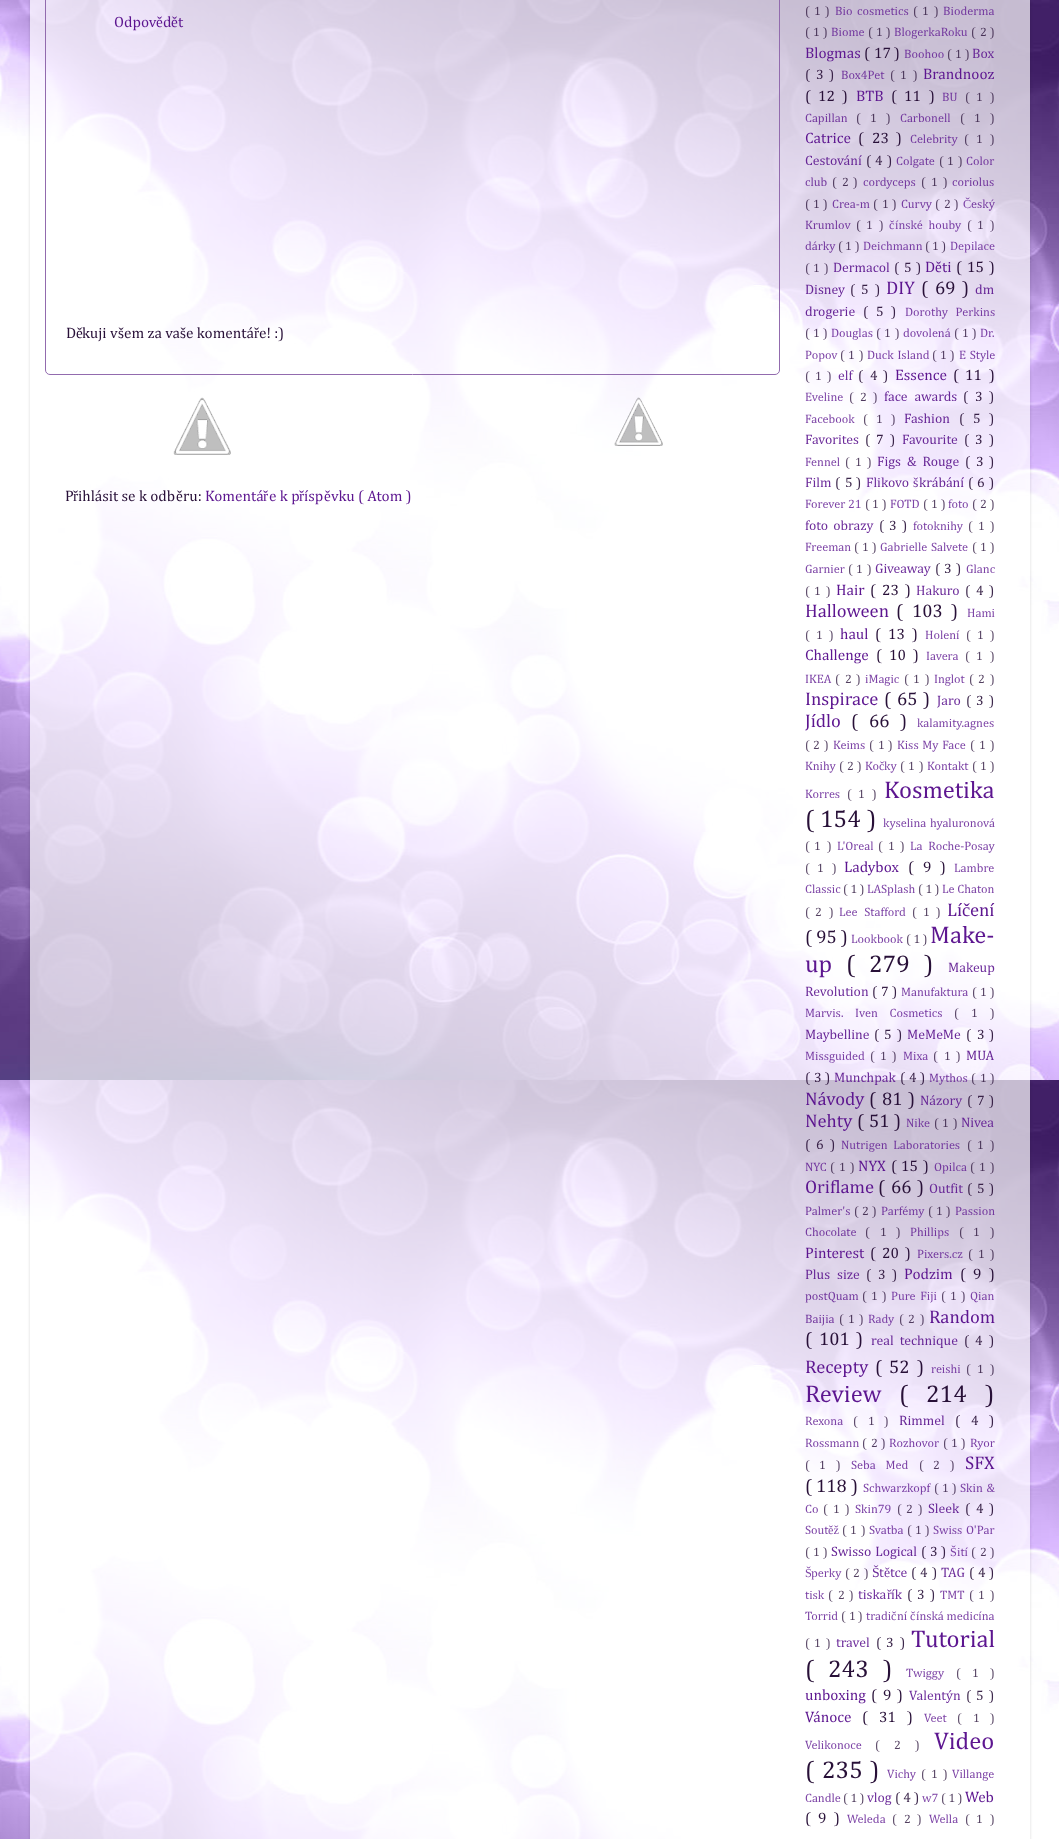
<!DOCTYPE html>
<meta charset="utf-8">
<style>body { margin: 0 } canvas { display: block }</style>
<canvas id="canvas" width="1059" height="1839"></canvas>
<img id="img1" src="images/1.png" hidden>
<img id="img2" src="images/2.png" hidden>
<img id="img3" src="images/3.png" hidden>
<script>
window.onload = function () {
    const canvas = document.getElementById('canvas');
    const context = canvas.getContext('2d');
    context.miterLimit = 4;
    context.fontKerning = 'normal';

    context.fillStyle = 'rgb(255, 255, 255)';
    context.fillRect(0, 0, 1059, 1839);
    context.drawImage(document.getElementById('img1'), 0, 0, 1059, 1839);
    context.save();
    context.beginPath();
    context.moveTo(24, 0);
    context.lineTo(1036, 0);
    context.lineTo(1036, 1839);
    context.lineTo(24, 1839);
    context.closePath();
    context.moveTo(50, -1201);
    context.lineTo(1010, -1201);
    context.bezierCurveTo(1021, -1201, 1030, -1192, 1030, -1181);
    context.lineTo(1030, 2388);
    context.lineTo(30, 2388);
    context.lineTo(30, -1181);
    context.bezierCurveTo(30, -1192, 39, -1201, 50, -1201);
    context.closePath();
    context.clip('evenodd');
    context.fillStyle = 'rgba(0, 0, 0, 0.15)';
    context.filter = 'blur(1.5px)';
    context.beginPath();
    context.roundRect(30, -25, 1000, 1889, 20);
    context.fill();
    context.filter = 'none';
    context.restore();
    context.beginPath();
    context.roundRect(45.5, -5.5, 734, 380, 4.5);
    context.strokeStyle = 'rgb(146, 107, 174)';
    context.stroke();
    context.drawImage(document.getElementById('img2'), 173, 397, 58, 58);
    context.drawImage(document.getElementById('img3'), 614, 397, 49, 49);
    context.font = '15.25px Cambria';
    context.fillStyle = 'rgb(93, 22, 144)';
    context.fillText('Odpov', 114, 27);
    context.font = '15.25px Liberation Serif';
    context.fillText('ě', 156, 27);
    context.font = '15.25px Cambria';
    context.fillText('d', 163, 27);
    context.font = '15.25px Liberation Serif';
    context.fillText('ě', 171, 27);
    context.font = '15.25px Cambria';
    context.fillText('t', 178, 27);
    context.fillStyle = 'rgb(40, 16, 56)';
    context.fillText('D', 66, 338);
    context.font = '15.25px Liberation Serif';
    context.fillText('ě', 76, 338);
    context.font = '15.25px Cambria';
    context.fillText('kuji v', 82, 338);
    context.font = '15.25px Liberation Serif';
    context.fillText('š', 118, 338);
    context.font = '15.25px Cambria';
    context.fillText('em za va', 124, 338);
    context.font = '15.25px Liberation Serif';
    context.fillText('š', 180, 338);
    context.font = '15.25px Cambria';
    context.fillText('e komentá', 186, 338);
    context.font = '15.25px Liberation Serif';
    context.fillText('ř', 254, 338);
    context.font = '15.25px Cambria';
    context.fillText('e! :)', 259, 338);
    context.fillText('P', 65, 501);
    context.font = '15.25px Liberation Serif';
    context.fillText('ř', 73, 501);
    context.font = '15.25px Cambria';
    context.fillText('ihlásit se k odb', 78, 501);
    context.font = '15.25px Liberation Serif';
    context.fillText('ě', 176, 501);
    context.font = '15.25px Cambria';
    context.fillText('ru:', 183, 501);
    context.fillStyle = 'rgb(93, 22, 144)';
    context.fillText('Komentá', 205, 501);
    context.font = '15.25px Liberation Serif';
    context.fillText('ř', 263, 501);
    context.font = '15.25px Cambria';
    context.fillText('e k p', 269, 501);
    context.font = '15.25px Liberation Serif';
    context.fillText('ř', 299, 501);
    context.font = '15.25px Cambria';
    context.fillText('ísp', 304, 501);
    context.font = '15.25px Liberation Serif';
    context.fillText('ě', 324, 501);
    context.font = '15.25px Cambria';
    context.fillText('vku ( Atom )', 331, 501);
    context.font = '12.25px Cambria';
    context.fillStyle = 'rgb(72, 51, 87)';
    context.fillText('(', 805, 15);
    context.fillText('1', 814, 15);
    context.fillText(')', 825, 15);
    context.wordSpacing = '2px';
    context.fillStyle = 'rgb(115, 56, 158)';
    context.fillText('Bio cosmetics', 835, 15);
    context.wordSpacing = '0px';
    context.fillStyle = 'rgb(72, 51, 87)';
    context.fillText('(', 913, 15);
    context.fillText('1', 922, 15);
    context.fillText(')', 934, 15);
    context.fillStyle = 'rgb(115, 56, 158)';
    context.fillText('Bioderma', 943, 15);
    context.fillStyle = 'rgb(72, 51, 87)';
    context.fillText('(', 805, 36);
    context.fillText('1', 813, 36);
    context.fillText(')', 823, 36);
    context.fillStyle = 'rgb(115, 56, 158)';
    context.fillText('Biome', 831, 36);
    context.fillStyle = 'rgb(72, 51, 87)';
    context.fillText('(', 868, 36);
    context.fillText('1', 876, 36);
    context.fillText(')', 886, 36);
    context.fillStyle = 'rgb(115, 56, 158)';
    context.fillText('BlogerkaRoku', 894, 36);
    context.fillStyle = 'rgb(72, 51, 87)';
    context.fillText('(', 971, 36);
    context.fillText('2', 980, 36);
    context.fillText(')', 990, 36);
    context.font = '15.25px Cambria';
    context.fillStyle = 'rgb(93, 22, 144)';
    context.fillText('Blogmas', 805, 58);
    context.fillStyle = 'rgb(40, 16, 56)';
    context.fillText('(', 864, 58);
    context.fillText('17', 874, 58);
    context.fillText(')', 894, 58);
    context.font = '12.25px Cambria';
    context.fillStyle = 'rgb(115, 56, 158)';
    context.fillText('Boohoo', 904, 58);
    context.fillStyle = 'rgb(72, 51, 87)';
    context.fillText('(', 947, 58);
    context.fillText('1', 955, 58);
    context.fillText(')', 965, 58);
    context.font = '13.75px Cambria';
    context.fillStyle = 'rgb(104, 39, 151)';
    context.fillText('Box', 972, 58);
    context.fillStyle = 'rgb(57, 34, 72)';
    context.fillText('(', 805, 79);
    context.fillText('3', 816, 79);
    context.fillText(')', 829, 79);
    context.font = '12.25px Cambria';
    context.fillStyle = 'rgb(115, 56, 158)';
    context.fillText('Box4Pet', 841, 79);
    context.fillStyle = 'rgb(72, 51, 87)';
    context.fillText('(', 890, 79);
    context.fillText('1', 900, 79);
    context.fillText(')', 913, 79);
    context.font = '15.25px Cambria';
    context.fillStyle = 'rgb(93, 22, 144)';
    context.fillText('Brandnooz', 923, 79);
    context.fillStyle = 'rgb(40, 16, 56)';
    context.fillText('(', 805, 101);
    context.fillText('12', 818, 101);
    context.fillText(')', 842, 101);
    context.fillStyle = 'rgb(93, 22, 144)';
    context.fillText('BTB', 856, 101);
    context.fillStyle = 'rgb(40, 16, 56)';
    context.fillText('(', 891, 101);
    context.fillText('11', 904, 101);
    context.fillText(')', 929, 101);
    context.font = '12.25px Cambria';
    context.fillStyle = 'rgb(115, 56, 158)';
    context.fillText('BU', 942, 101);
    context.fillStyle = 'rgb(72, 51, 87)';
    context.fillText('(', 965, 101);
    context.fillText('1', 976, 101);
    context.fillText(')', 990, 101);
    context.fillStyle = 'rgb(115, 56, 158)';
    context.fillText('Capillan', 805, 122);
    context.fillStyle = 'rgb(72, 51, 87)';
    context.fillText('(', 856, 122);
    context.fillText('1', 870, 122);
    context.fillText(')', 886, 122);
    context.fillStyle = 'rgb(115, 56, 158)';
    context.fillText('Carbonell', 900, 122);
    context.fillStyle = 'rgb(72, 51, 87)';
    context.fillText('(', 960, 122);
    context.fillText('1', 974, 122);
    context.fillText(')', 990, 122);
    context.font = '15.25px Cambria';
    context.fillStyle = 'rgb(93, 22, 144)';
    context.fillText('Catrice', 805, 143);
    context.fillStyle = 'rgb(40, 16, 56)';
    context.fillText('(', 858, 143);
    context.fillText('23', 872, 143);
    context.fillText(')', 896, 143);
    context.font = '12.25px Cambria';
    context.fillStyle = 'rgb(115, 56, 158)';
    context.fillText('Celebrity', 910, 143);
    context.fillStyle = 'rgb(72, 51, 87)';
    context.fillText('(', 964, 143);
    context.fillText('1', 976, 143);
    context.fillText(')', 990, 143);
    context.font = '13.75px Cambria';
    context.fillStyle = 'rgb(104, 39, 151)';
    context.fillText('Cestování', 805, 165);
    context.fillStyle = 'rgb(57, 34, 72)';
    context.fillText('(', 866, 165);
    context.fillText('4', 875, 165);
    context.fillText(')', 887, 165);
    context.font = '12.25px Cambria';
    context.fillStyle = 'rgb(115, 56, 158)';
    context.fillText('Colgate', 896, 165);
    context.fillStyle = 'rgb(72, 51, 87)';
    context.fillText('(', 939, 165);
    context.fillText('1', 947, 165);
    context.fillText(')', 958, 165);
    context.fillStyle = 'rgb(115, 56, 158)';
    context.fillText('Color', 966, 165);
    context.fillText('club', 805, 186);
    context.fillStyle = 'rgb(72, 51, 87)';
    context.fillText('(', 832, 186);
    context.fillText('2', 842, 186);
    context.fillText(')', 853, 186);
    context.fillStyle = 'rgb(115, 56, 158)';
    context.fillText('cordyceps', 863, 186);
    context.fillStyle = 'rgb(72, 51, 87)';
    context.fillText('(', 921, 186);
    context.fillText('1', 931, 186);
    context.fillText(')', 943, 186);
    context.fillStyle = 'rgb(115, 56, 158)';
    context.fillText('coriolus', 952, 186);
    context.fillStyle = 'rgb(72, 51, 87)';
    context.fillText('(', 805, 208);
    context.fillText('1', 813, 208);
    context.fillText(')', 823, 208);
    context.fillStyle = 'rgb(115, 56, 158)';
    context.fillText('Crea-m', 832, 208);
    context.fillStyle = 'rgb(72, 51, 87)';
    context.fillText('(', 873, 208);
    context.fillText('1', 882, 208);
    context.fillText(')', 892, 208);
    context.fillStyle = 'rgb(115, 56, 158)';
    context.fillText('Curvy', 901, 208);
    context.fillStyle = 'rgb(79, 58, 94)';
    context.fillText('(', 935, 208);
    context.fillText('2', 944, 208);
    context.fillText(')', 954, 208);
    context.font = '12.25px Liberation Serif';
    context.fillStyle = 'rgb(121, 62, 164)';
    context.fillText('Č', 963, 208);
    context.font = '12.25px Cambria';
    context.fillStyle = 'rgb(115, 56, 158)';
    context.fillText('eský', 971, 208);
    context.fillText('Krumlov', 805, 229);
    context.fillStyle = 'rgb(72, 51, 87)';
    context.fillText('(', 856, 229);
    context.fillStyle = 'rgb(79, 58, 94)';
    context.fillText('1', 866, 229);
    context.fillText(')', 879, 229);
    context.font = '12.25px Liberation Serif';
    context.fillStyle = 'rgb(121, 62, 164)';
    context.fillText('č', 889, 229);
    context.wordSpacing = '3px';
    context.font = '12.25px Cambria';
    context.fillText('ínské houby', 895, 229);
    context.wordSpacing = '0px';
    context.fillStyle = 'rgb(79, 58, 94)';
    context.fillText('(', 967, 229);
    context.fillText('1', 977, 229);
    context.fillText(')', 990, 229);
    context.fillStyle = 'rgb(115, 56, 158)';
    context.fillText('dárky', 805, 250);
    context.fillStyle = 'rgb(72, 51, 87)';
    context.fillText('(', 838, 250);
    context.fillStyle = 'rgb(79, 58, 94)';
    context.fillText('1', 845, 250);
    context.fillText(')', 855, 250);
    context.fillStyle = 'rgb(121, 62, 164)';
    context.fillText('Deichmann', 863, 250);
    context.fillStyle = 'rgb(79, 58, 94)';
    context.fillText('(', 925, 250);
    context.fillText('1 )', 932, 250);
    context.fillStyle = 'rgb(121, 62, 164)';
    context.fillText('Depilace', 950, 250);
    context.fillStyle = 'rgb(79, 58, 94)';
    context.fillText('(', 805, 272);
    context.fillText('1', 813, 272);
    context.fillText(')', 824, 272);
    context.font = '13.75px Cambria';
    context.fillStyle = 'rgb(104, 39, 151)';
    context.fillText('Dermacol', 833, 272);
    context.fillStyle = 'rgb(57, 34, 72)';
    context.fillText('(', 894, 272);
    context.fillText('5', 904, 272);
    context.fillText(')', 916, 272);
    context.font = '15.25px Cambria';
    context.fillStyle = 'rgb(93, 22, 144)';
    context.fillText('D', 925, 272);
    context.font = '15.25px Liberation Serif';
    context.fillText('ě', 935, 272);
    context.font = '15.25px Cambria';
    context.fillText('ti', 942, 272);
    context.fillStyle = 'rgb(40, 16, 56)';
    context.fillText('(', 956, 272);
    context.fillText('15', 967, 272);
    context.fillText(')', 989, 272);
    context.font = '13.75px Cambria';
    context.fillStyle = 'rgb(104, 39, 151)';
    context.fillText('Disney', 805, 294);
    context.fillStyle = 'rgb(57, 34, 72)';
    context.fillText('(', 850, 294);
    context.fillText('5', 861, 294);
    context.fillText(')', 875, 294);
    context.font = '18.5px Cambria';
    context.fillStyle = 'rgb(93, 22, 144)';
    context.fillText('DIY', 886, 294);
    context.fillStyle = 'rgb(40, 16, 56)';
    context.fillText('(', 921, 294);
    context.fillText('69', 935, 294);
    context.fillText(')', 962, 294);
    context.font = '13.75px Cambria';
    context.fillStyle = 'rgb(104, 39, 151)';
    context.fillText('dm', 975, 294);
    context.fillText('drogerie', 805, 316);
    context.fillStyle = 'rgb(57, 34, 72)';
    context.fillText('(', 863, 316);
    context.fillText('5', 876, 316);
    context.fillText(')', 891, 316);
    context.wordSpacing = '5px';
    context.font = '12.25px Cambria';
    context.fillStyle = 'rgb(121, 62, 164)';
    context.fillText('Dorothy Perkins', 905, 316);
    context.wordSpacing = '0px';
    context.fillStyle = 'rgb(79, 58, 94)';
    context.fillText('(', 805, 337);
    context.fillText('1', 813, 337);
    context.fillText(')', 823, 337);
    context.fillStyle = 'rgb(121, 62, 164)';
    context.fillText('Douglas', 831, 337);
    context.fillStyle = 'rgb(79, 58, 94)';
    context.fillText('(', 876, 337);
    context.fillText('1', 884, 337);
    context.fillText(')', 895, 337);
    context.fillStyle = 'rgb(121, 62, 164)';
    context.fillText('dovolená', 903, 337);
    context.fillStyle = 'rgb(79, 58, 94)';
    context.fillText('(', 954, 337);
    context.fillText('1', 962, 337);
    context.fillText(')', 972, 337);
    context.fillStyle = 'rgb(121, 62, 164)';
    context.fillText('Dr.', 980, 337);
    context.fillStyle = 'rgb(125, 68, 166)';
    context.fillText('Popov', 805, 359);
    context.fillStyle = 'rgb(79, 58, 94)';
    context.fillText('(', 840, 359);
    context.fillText('1', 848, 359);
    context.fillText(')', 859, 359);
    context.wordSpacing = '1px';
    context.fillStyle = 'rgb(121, 62, 164)';
    context.fillText('Duck Island', 867, 359);
    context.wordSpacing = '0px';
    context.fillStyle = 'rgb(79, 58, 94)';
    context.fillText('(', 932, 359);
    context.fillText('1', 940, 359);
    context.fillText(')', 950, 359);
    context.wordSpacing = '1px';
    context.fillStyle = 'rgb(121, 62, 164)';
    context.fillText('E Style', 959, 359);
    context.wordSpacing = '0px';
    context.fillStyle = 'rgb(79, 58, 94)';
    context.fillText('(', 805, 380);
    context.fillText('1', 815, 380);
    context.fillText(')', 827, 380);
    context.font = '13.75px Cambria';
    context.fillStyle = 'rgb(109, 45, 155)';
    context.fillText('elf', 838, 380);
    context.fillStyle = 'rgb(57, 34, 72)';
    context.fillText('(', 858, 380);
    context.fillText('4', 870, 380);
    context.fillText(')', 883, 380);
    context.font = '15.25px Cambria';
    context.fillStyle = 'rgb(93, 22, 144)';
    context.fillText('Essence', 895, 380);
    context.fillStyle = 'rgb(40, 16, 56)';
    context.fillText('(', 953, 380);
    context.fillText('11', 965, 380);
    context.fillText(')', 989, 380);
    context.font = '12.25px Cambria';
    context.fillStyle = 'rgb(125, 68, 166)';
    context.fillText('Eveline', 805, 401);
    context.fillStyle = 'rgb(79, 58, 94)';
    context.fillText('(', 849, 401);
    context.fillText('2', 860, 401);
    context.fillText(')', 873, 401);
    context.wordSpacing = '4px';
    context.font = '13.75px Cambria';
    context.fillStyle = 'rgb(104, 39, 151)';
    context.fillText('face awards', 884, 401);
    context.wordSpacing = '0px';
    context.fillStyle = 'rgb(57, 34, 72)';
    context.fillText('(', 963, 401);
    context.fillText('3', 975, 401);
    context.fillText(')', 989, 401);
    context.font = '12.25px Cambria';
    context.fillStyle = 'rgb(125, 68, 166)';
    context.fillText('Facebook', 805, 423);
    context.fillStyle = 'rgb(83, 64, 96)';
    context.fillText('(', 863, 423);
    context.fillStyle = 'rgb(79, 58, 94)';
    context.fillText('1', 876, 423);
    context.fillText(')', 891, 423);
    context.font = '13.75px Cambria';
    context.fillStyle = 'rgb(104, 39, 151)';
    context.fillText('Fashion', 904, 423);
    context.fillStyle = 'rgb(57, 34, 72)';
    context.fillText('(', 959, 423);
    context.fillText('5', 973, 423);
    context.fillText(')', 989, 423);
    context.fillStyle = 'rgb(109, 45, 155)';
    context.fillText('Favorites', 805, 444);
    context.fillStyle = 'rgb(61, 40, 76)';
    context.fillText('(', 865, 444);
    context.fillStyle = 'rgb(57, 34, 72)';
    context.fillText('7', 876, 444);
    context.fillText(')', 890, 444);
    context.fillStyle = 'rgb(104, 39, 151)';
    context.fillText('Favourite', 902, 444);
    context.fillStyle = 'rgb(57, 34, 72)';
    context.fillText('(', 964, 444);
    context.fillText('3', 975, 444);
    context.fillText(')', 989, 444);
    context.font = '12.25px Cambria';
    context.fillStyle = 'rgb(125, 68, 166)';
    context.fillText('Fennel', 805, 466);
    context.fillStyle = 'rgb(83, 64, 96)';
    context.fillText('(', 845, 466);
    context.fillText('1', 855, 466);
    context.fillStyle = 'rgb(79, 58, 94)';
    context.fillText(')', 867, 466);
    context.wordSpacing = '3px';
    context.font = '13.75px Cambria';
    context.fillStyle = 'rgb(104, 39, 151)';
    context.fillText('Figs & Rouge', 877, 466);
    context.wordSpacing = '0px';
    context.fillStyle = 'rgb(57, 34, 72)';
    context.fillText('(', 965, 466);
    context.fillText('3', 976, 466);
    context.fillText(')', 989, 466);
    context.fillStyle = 'rgb(109, 45, 155)';
    context.fillText('Film', 805, 487);
    context.fillStyle = 'rgb(61, 40, 76)';
    context.fillText('(', 835, 487);
    context.fillText('5', 845, 487);
    context.fillText(')', 856, 487);
    context.fillStyle = 'rgb(109, 45, 155)';
    context.fillText('Flikovo', 866, 487);
    context.font = '13.75px Liberation Serif';
    context.fillText('š', 913, 487);
    context.font = '13.75px Cambria';
    context.fillStyle = 'rgb(104, 39, 151)';
    context.fillText('krábání', 919, 487);
    context.fillStyle = 'rgb(57, 34, 72)';
    context.fillText('(', 968, 487);
    context.fillText('6', 977, 487);
    context.fillText(')', 989, 487);
    context.font = '12.25px Cambria';
    context.fillStyle = 'rgb(125, 68, 166)';
    context.fillText('Forever 21', 805, 508);
    context.fillStyle = 'rgb(83, 64, 96)';
    context.fillText('(', 865, 508);
    context.fillText('1', 872, 508);
    context.fillText(')', 882, 508);
    context.fillStyle = 'rgb(125, 68, 166)';
    context.fillText('FOTD', 890, 508);
    context.fillStyle = 'rgb(83, 64, 96)';
    context.fillText('(', 923, 508);
    context.fillText('1', 931, 508);
    context.fillStyle = 'rgb(79, 58, 94)';
    context.fillText(')', 941, 508);
    context.fillStyle = 'rgb(125, 68, 166)';
    context.fillText('foto', 948, 508);
    context.fillStyle = 'rgb(79, 58, 94)';
    context.fillText('(', 972, 508);
    context.fillText('2', 980, 508);
    context.fillStyle = 'rgb(83, 64, 96)';
    context.fillText(')', 990, 508);
    context.wordSpacing = '2px';
    context.font = '13.75px Cambria';
    context.fillStyle = 'rgb(109, 45, 155)';
    context.fillText('foto obrazy', 805, 530);
    context.wordSpacing = '0px';
    context.fillStyle = 'rgb(61, 40, 76)';
    context.fillText('(', 879, 530);
    context.fillText('3', 889, 530);
    context.fillText(')', 902, 530);
    context.font = '12.25px Cambria';
    context.fillStyle = 'rgb(125, 68, 166)';
    context.fillText('fotoknihy', 913, 530);
    context.fillStyle = 'rgb(83, 64, 96)';
    context.fillText('(', 968, 530);
    context.fillText('1', 978, 530);
    context.fillText(')', 990, 530);
    context.fillStyle = 'rgb(125, 68, 166)';
    context.fillText('Freeman', 805, 551);
    context.fillStyle = 'rgb(83, 64, 96)';
    context.fillText('(', 854, 551);
    context.fillText('1', 862, 551);
    context.fillText(')', 872, 551);
    context.wordSpacing = '1px';
    context.fillStyle = 'rgb(125, 68, 166)';
    context.fillText('Gabrielle Salvete', 880, 551);
    context.wordSpacing = '0px';
    context.fillStyle = 'rgb(83, 64, 96)';
    context.fillText('(', 972, 551);
    context.fillText('1', 980, 551);
    context.fillText(')', 990, 551);
    context.fillStyle = 'rgb(125, 68, 166)';
    context.fillText('Garnier', 805, 573);
    context.fillStyle = 'rgb(83, 64, 96)';
    context.fillText('(', 848, 573);
    context.fillText('1', 856, 573);
    context.fillText(')', 867, 573);
    context.font = '13.75px Cambria';
    context.fillStyle = 'rgb(109, 45, 155)';
    context.fillText('Giveaway', 875, 573);
    context.fillStyle = 'rgb(61, 40, 76)';
    context.fillText('(', 935, 573);
    context.fillText('3', 944, 573);
    context.fillText(')', 956, 573);
    context.font = '12.25px Cambria';
    context.fillStyle = 'rgb(125, 68, 166)';
    context.fillText('Glanc', 966, 573);
    context.fillStyle = 'rgb(83, 64, 96)';
    context.fillText('(', 805, 595);
    context.fillText('1', 814, 595);
    context.fillText(')', 826, 595);
    context.font = '15.25px Cambria';
    context.fillStyle = 'rgb(93, 22, 144)';
    context.fillText('Hair', 836, 595);
    context.fillStyle = 'rgb(40, 16, 56)';
    context.fillText('(', 870, 595);
    context.fillText('23', 882, 595);
    context.fillText(')', 905, 595);
    context.font = '13.75px Cambria';
    context.fillStyle = 'rgb(109, 45, 155)';
    context.fillText('Hakuro', 916, 595);
    context.fillStyle = 'rgb(61, 40, 76)';
    context.fillText('(', 965, 595);
    context.fillText('4', 976, 595);
    context.fillText(')', 989, 595);
    context.font = '18.5px Cambria';
    context.fillStyle = 'rgb(93, 22, 144)';
    context.fillText('Halloween', 805, 617);
    context.fillStyle = 'rgb(40, 16, 56)';
    context.fillText('(', 896, 617);
    context.fillText('103', 912, 617);
    context.fillText(')', 951, 617);
    context.font = '12.25px Cambria';
    context.fillStyle = 'rgb(125, 68, 166)';
    context.fillText('Hami', 967, 617);
    context.fillStyle = 'rgb(83, 64, 96)';
    context.fillText('(', 805, 639);
    context.fillText('1', 816, 639);
    context.fillText(')', 829, 639);
    context.font = '15.25px Cambria';
    context.fillStyle = 'rgb(93, 22, 144)';
    context.fillText('haul', 840, 639);
    context.fillStyle = 'rgb(40, 16, 56)';
    context.fillText('(', 875, 639);
    context.fillText('13', 888, 639);
    context.fillText(')', 912, 639);
    context.font = '12.25px Cambria';
    context.fillStyle = 'rgb(125, 68, 166)';
    context.fillText('Holení', 925, 639);
    context.fillStyle = 'rgb(83, 64, 96)';
    context.fillText('(', 966, 639);
    context.fillText('1', 977, 639);
    context.fillText(')', 990, 639);
    context.font = '15.25px Cambria';
    context.fillStyle = 'rgb(93, 22, 144)';
    context.fillText('Challenge', 805, 660);
    context.fillStyle = 'rgb(40, 16, 56)';
    context.fillText('(', 876, 660);
    context.fillText('10', 889, 660);
    context.fillText(')', 913, 660);
    context.font = '12.25px Cambria';
    context.fillStyle = 'rgb(125, 68, 166)';
    context.fillText('Iavera', 926, 660);
    context.fillStyle = 'rgb(83, 64, 96)';
    context.fillText('(', 965, 660);
    context.fillText('1', 976, 660);
    context.fillText(')', 990, 660);
    context.fillStyle = 'rgb(125, 68, 166)';
    context.fillText('IKEA', 805, 683);
    context.fillStyle = 'rgb(83, 64, 96)';
    context.fillText('(', 835, 683);
    context.fillText('2', 845, 683);
    context.fillText(')', 856, 683);
    context.fillStyle = 'rgb(125, 68, 166)';
    context.fillText('iMagic', 865, 683);
    context.fillStyle = 'rgb(83, 64, 96)';
    context.fillText('(', 904, 683);
    context.fillText('1', 913, 683);
    context.fillText(')', 925, 683);
    context.fillStyle = 'rgb(125, 68, 166)';
    context.fillText('Inglot', 934, 683);
    context.fillStyle = 'rgb(83, 64, 96)';
    context.fillText('(', 969, 683);
    context.fillText('2', 978, 683);
    context.fillText(')', 990, 683);
    context.font = '18.5px Cambria';
    context.fillStyle = 'rgb(93, 22, 144)';
    context.fillText('Inspirace', 805, 705);
    context.fillStyle = 'rgb(40, 16, 56)';
    context.fillText('(', 884, 705);
    context.fillText('65', 897, 705);
    context.fillText(')', 923, 705);
    context.font = '13.75px Cambria';
    context.fillStyle = 'rgb(109, 45, 155)';
    context.fillText('Jaro', 937, 705);
    context.fillStyle = 'rgb(61, 40, 76)';
    context.fillText('(', 966, 705);
    context.fillText('3', 976, 705);
    context.fillText(')', 989, 705);
    context.font = '18.5px Cambria';
    context.fillStyle = 'rgb(93, 22, 144)';
    context.fillText('Jídlo', 805, 727);
    context.fillStyle = 'rgb(40, 16, 56)';
    context.fillText('(', 851, 727);
    context.fillText('66', 869, 727);
    context.fillText(')', 900, 727);
    context.font = '12.25px Cambria';
    context.fillStyle = 'rgb(125, 68, 166)';
    context.fillText('kalamity.agnes', 917, 727);
    context.fillStyle = 'rgb(83, 64, 96)';
    context.fillText('(', 805, 749);
    context.fillText('2', 813, 749);
    context.fillText(')', 824, 749);
    context.fillStyle = 'rgb(125, 68, 166)';
    context.fillText('Keims', 833, 749);
    context.fillStyle = 'rgb(83, 64, 96)';
    context.fillText('(', 869, 749);
    context.fillText('1', 878, 749);
    context.fillText(')', 888, 749);
    context.wordSpacing = '1px';
    context.fillStyle = 'rgb(125, 68, 166)';
    context.fillText('Kiss My Face', 897, 749);
    context.wordSpacing = '0px';
    context.fillStyle = 'rgb(83, 64, 96)';
    context.fillText('(', 970, 749);
    context.fillText('1', 979, 749);
    context.fillText(')', 990, 749);
    context.fillStyle = 'rgb(125, 68, 166)';
    context.fillText('Knihy', 805, 770);
    context.fillStyle = 'rgb(83, 64, 96)';
    context.fillText('(', 839, 770);
    context.fillText('2', 847, 770);
    context.fillText(')', 857, 770);
    context.fillStyle = 'rgb(125, 68, 166)';
    context.fillText('Ko', 865, 770);
    context.font = '12.25px Liberation Serif';
    context.fillText('č', 879, 770);
    context.font = '12.25px Cambria';
    context.fillText('ky', 884, 770);
    context.fillStyle = 'rgb(83, 64, 96)';
    context.fillText('(', 900, 770);
    context.fillText('1', 908, 770);
    context.fillText(')', 919, 770);
    context.fillStyle = 'rgb(125, 68, 166)';
    context.fillText('Kontakt', 927, 770);
    context.fillStyle = 'rgb(83, 64, 96)';
    context.fillText('(', 972, 770);
    context.fillText('1', 980, 770);
    context.fillText(')', 990, 770);
    context.fillStyle = 'rgb(125, 68, 166)';
    context.fillText('Korres', 805, 798);
    context.fillStyle = 'rgb(83, 64, 96)';
    context.fillText('(', 847, 798);
    context.fillText('1', 858, 798);
    context.fillText(')', 872, 798);
    context.font = '24.5px Cambria';
    context.fillStyle = 'rgb(93, 22, 144)';
    context.fillText('Kosmetika', 884, 798);
    context.fillStyle = 'rgb(40, 16, 56)';
    context.fillText('(', 805, 827);
    context.fillText('154', 820, 827);
    context.fillText(')', 867, 827);
    context.wordSpacing = '1px';
    context.font = '12.25px Cambria';
    context.fillStyle = 'rgb(125, 68, 166)';
    context.fillText('kyselina hyaluronová', 883, 827);
    context.wordSpacing = '0px';
    context.fillStyle = 'rgb(83, 64, 96)';
    context.fillText('(', 805, 850);
    context.fillText('1', 814, 850);
    context.fillText(')', 827, 850);
    context.fillStyle = 'rgb(125, 68, 166)';
    context.fillText('L\'Oreal', 837, 850);
    context.fillStyle = 'rgb(83, 64, 96)';
    context.fillText('(', 878, 850);
    context.fillText('1', 888, 850);
    context.fillText(')', 900, 850);
    context.wordSpacing = '3px';
    context.fillStyle = 'rgb(125, 68, 166)';
    context.fillText('La Roche-Posay', 910, 850);
    context.wordSpacing = '0px';
    context.fillStyle = 'rgb(83, 64, 96)';
    context.fillText('(', 805, 872);
    context.fillText('1', 817, 872);
    context.fillText(')', 832, 872);
    context.font = '15.25px Cambria';
    context.fillStyle = 'rgb(93, 22, 144)';
    context.fillText('Ladybox', 844, 872);
    context.fillStyle = 'rgb(40, 16, 56)';
    context.fillText('(', 908, 872);
    context.fillText('9', 923, 872);
    context.fillText(')', 940, 872);
    context.font = '12.25px Cambria';
    context.fillStyle = 'rgb(125, 68, 166)';
    context.fillText('Lambre', 954, 872);
    context.fillText('Classic', 805, 893);
    context.fillStyle = 'rgb(83, 64, 96)';
    context.fillText('( 1 )', 843, 893);
    context.fillStyle = 'rgb(125, 68, 166)';
    context.fillText('LASplash', 867, 893);
    context.fillStyle = 'rgb(83, 64, 96)';
    context.fillText('( 1 )', 918, 893);
    context.fillStyle = 'rgb(125, 68, 166)';
    context.fillText('Le Chaton', 942, 893);
    context.fillStyle = 'rgb(83, 64, 96)';
    context.fillText('(', 805, 916);
    context.fillText('2', 815, 916);
    context.fillText(')', 829, 916);
    context.wordSpacing = '4px';
    context.fillStyle = 'rgb(125, 68, 166)';
    context.fillText('Lee Stafford', 839, 916);
    context.wordSpacing = '0px';
    context.fillStyle = 'rgb(83, 64, 96)';
    context.fillText('(', 912, 916);
    context.fillText('1', 923, 916);
    context.fillText(')', 936, 916);
    context.font = '18.5px Cambria';
    context.fillStyle = 'rgb(93, 22, 144)';
    context.fillText('Lí', 947, 916);
    context.font = '18.5px Liberation Serif';
    context.fillText('č', 962, 916);
    context.font = '18.5px Cambria';
    context.fillText('ení', 970, 916);
    context.fillStyle = 'rgb(40, 16, 56)';
    context.fillText('( 95 )', 805, 943);
    context.font = '12.25px Cambria';
    context.fillStyle = 'rgb(125, 68, 166)';
    context.fillText('Lookbook', 851, 943);
    context.fillStyle = 'rgb(83, 64, 96)';
    context.fillText('( 1 )', 906, 943);
    context.font = '24.5px Cambria';
    context.fillStyle = 'rgb(93, 22, 144)';
    context.fillText('Make-', 930, 943);
    context.fillText('up', 805, 972);
    context.fillStyle = 'rgb(40, 16, 56)';
    context.fillText('(', 846, 972);
    context.fillText('279', 869, 972);
    context.fillText(')', 924, 972);
    context.font = '13.75px Cambria';
    context.fillStyle = 'rgb(109, 45, 155)';
    context.fillText('Makeup', 948, 972);
    context.fillText('Revolution', 805, 996);
    context.fillStyle = 'rgb(57, 34, 72)';
    context.fillText('(', 872, 996);
    context.fillText('7', 881, 996);
    context.fillText(')', 892, 996);
    context.font = '12.25px Cambria';
    context.fillStyle = 'rgb(121, 62, 164)';
    context.fillText('Manufaktura', 901, 996);
    context.fillStyle = 'rgb(79, 58, 94)';
    context.fillText('(', 972, 996);
    context.fillText('1', 980, 996);
    context.fillText(')', 990, 996);
    context.wordSpacing = '9px';
    context.fillStyle = 'rgb(121, 62, 164)';
    context.fillText('Marvis. Iven Cosmetics', 805, 1017);
    context.wordSpacing = '0px';
    context.fillStyle = 'rgb(79, 58, 94)';
    context.fillText('(', 954, 1017);
    context.fillText('1', 971, 1017);
    context.fillText(')', 990, 1017);
    context.font = '13.75px Cambria';
    context.fillStyle = 'rgb(104, 39, 151)';
    context.fillText('Maybelline', 805, 1039);
    context.fillStyle = 'rgb(57, 34, 72)';
    context.fillText('(', 874, 1039);
    context.fillText('5', 884, 1039);
    context.fillText(')', 897, 1039);
    context.fillStyle = 'rgb(104, 39, 151)';
    context.fillText('MeMeMe', 907, 1039);
    context.fillStyle = 'rgb(57, 34, 72)';
    context.fillText('(', 966, 1039);
    context.fillText('3', 977, 1039);
    context.fillText(')', 989, 1039);
    context.font = '12.25px Cambria';
    context.fillStyle = 'rgb(121, 62, 164)';
    context.fillText('Missguided', 805, 1060);
    context.fillStyle = 'rgb(79, 58, 94)';
    context.fillText('(', 870, 1060);
    context.fillText('1', 880, 1060);
    context.fillText(')', 892, 1060);
    context.fillStyle = 'rgb(121, 62, 164)';
    context.fillText('Mixa', 903, 1060);
    context.fillStyle = 'rgb(79, 58, 94)';
    context.fillText('(', 933, 1060);
    context.fillText('1', 944, 1060);
    context.fillText(')', 956, 1060);
    context.font = '13.75px Cambria';
    context.fillStyle = 'rgb(104, 39, 151)';
    context.fillText('MUA', 966, 1060);
    context.fillStyle = 'rgb(57, 34, 72)';
    context.fillText('(', 805, 1082);
    context.fillText('3', 814, 1082);
    context.fillText(')', 825, 1082);
    context.fillStyle = 'rgb(104, 39, 151)';
    context.fillText('Munchpak', 834, 1082);
    context.fillStyle = 'rgb(57, 34, 72)';
    context.fillText('(', 900, 1082);
    context.fillText('4', 909, 1082);
    context.fillText(')', 920, 1082);
    context.font = '12.25px Cambria';
    context.fillStyle = 'rgb(115, 56, 158)';
    context.fillText('Mythos', 929, 1082);
    context.fillStyle = 'rgb(72, 51, 87)';
    context.fillText('(', 971, 1082);
    context.fillText('1', 980, 1082);
    context.fillText(')', 990, 1082);
    context.font = '18.5px Cambria';
    context.fillStyle = 'rgb(93, 22, 144)';
    context.fillText('Návody', 805, 1105);
    context.fillStyle = 'rgb(40, 16, 56)';
    context.fillText('(', 869, 1105);
    context.fillText('81', 882, 1105);
    context.fillText(')', 908, 1105);
    context.font = '13.75px Cambria';
    context.fillStyle = 'rgb(104, 39, 151)';
    context.fillText('Názory', 920, 1105);
    context.fillStyle = 'rgb(57, 34, 72)';
    context.fillText('(', 967, 1105);
    context.fillText('7', 977, 1105);
    context.fillText(')', 989, 1105);
    context.font = '18.5px Cambria';
    context.fillStyle = 'rgb(93, 22, 144)';
    context.fillText('Nehty', 805, 1127);
    context.fillStyle = 'rgb(40, 16, 56)';
    context.fillText('(', 857, 1127);
    context.fillText('51', 869, 1127);
    context.fillText(')', 894, 1127);
    context.font = '12.25px Cambria';
    context.fillStyle = 'rgb(115, 56, 158)';
    context.fillText('Nike', 906, 1127);
    context.fillStyle = 'rgb(72, 51, 87)';
    context.fillText('(', 934, 1127);
    context.fillText('1', 942, 1127);
    context.fillText(')', 953, 1127);
    context.font = '13.75px Cambria';
    context.fillStyle = 'rgb(104, 39, 151)';
    context.fillText('Nivea', 961, 1127);
    context.fillStyle = 'rgb(57, 34, 72)';
    context.fillText('(', 805, 1149);
    context.fillText('6', 816, 1149);
    context.fillText(')', 830, 1149);
    context.wordSpacing = '3px';
    context.font = '12.25px Cambria';
    context.fillStyle = 'rgb(115, 56, 158)';
    context.fillText('Nutrigen Laboratories', 841, 1149);
    context.wordSpacing = '0px';
    context.fillStyle = 'rgb(72, 51, 87)';
    context.fillText('(', 967, 1149);
    context.fillText('1', 977, 1149);
    context.fillText(')', 990, 1149);
    context.fillStyle = 'rgb(115, 56, 158)';
    context.fillText('NYC', 805, 1171);
    context.fillStyle = 'rgb(72, 51, 87)';
    context.fillText('(', 830, 1171);
    context.fillText('1', 839, 1171);
    context.fillText(')', 850, 1171);
    context.font = '15.25px Cambria';
    context.fillStyle = 'rgb(93, 22, 144)';
    context.fillText('NYX', 858, 1171);
    context.fillStyle = 'rgb(40, 16, 56)';
    context.fillText('(', 891, 1171);
    context.fillText('15', 901, 1171);
    context.fillText(')', 923, 1171);
    context.font = '12.25px Cambria';
    context.fillStyle = 'rgb(115, 56, 158)';
    context.fillText('Opilca', 934, 1171);
    context.fillStyle = 'rgb(72, 51, 87)';
    context.fillText('(', 970, 1171);
    context.fillText('1', 979, 1171);
    context.fillText(')', 990, 1171);
    context.font = '18.5px Cambria';
    context.fillStyle = 'rgb(93, 22, 144)';
    context.fillText('Oriflame', 805, 1193);
    context.fillStyle = 'rgb(40, 16, 56)';
    context.fillText('(', 878, 1193);
    context.fillText('66', 891, 1193);
    context.fillText(')', 917, 1193);
    context.font = '13.75px Cambria';
    context.fillStyle = 'rgb(104, 39, 151)';
    context.fillText('Outfit', 929, 1193);
    context.fillStyle = 'rgb(57, 34, 72)';
    context.fillText('(', 967, 1193);
    context.fillText('5', 977, 1193);
    context.fillText(')', 989, 1193);
    context.font = '12.25px Cambria';
    context.fillStyle = 'rgb(115, 56, 158)';
    context.fillText('Palmer\'s', 805, 1215);
    context.fillStyle = 'rgb(72, 51, 87)';
    context.fillText('(', 854, 1215);
    context.fillText('2', 862, 1215);
    context.fillText(')', 872, 1215);
    context.fillStyle = 'rgb(115, 56, 158)';
    context.fillText('Parfémy', 881, 1215);
    context.fillStyle = 'rgb(72, 51, 87)';
    context.fillText('(', 928, 1215);
    context.fillText('1', 936, 1215);
    context.fillText(')', 946, 1215);
    context.fillStyle = 'rgb(115, 56, 158)';
    context.fillText('Passion', 955, 1215);
    context.fillText('Chocolate', 805, 1236);
    context.fillStyle = 'rgb(72, 51, 87)';
    context.fillText('(', 865, 1236);
    context.fillText('1', 880, 1236);
    context.fillText(')', 896, 1236);
    context.fillStyle = 'rgb(115, 56, 158)';
    context.fillText('Phillips', 910, 1236);
    context.fillStyle = 'rgb(72, 51, 87)';
    context.fillText('(', 959, 1236);
    context.fillText('1', 973, 1236);
    context.fillText(')', 990, 1236);
    context.font = '15.25px Cambria';
    context.fillStyle = 'rgb(93, 22, 144)';
    context.fillText('Pinterest', 805, 1258);
    context.fillStyle = 'rgb(40, 16, 56)';
    context.fillText('(', 870, 1258);
    context.fillText('20', 882, 1258);
    context.fillText(')', 905, 1258);
    context.font = '12.25px Cambria';
    context.fillStyle = 'rgb(115, 56, 158)';
    context.fillText('Pixers.cz', 917, 1258);
    context.fillStyle = 'rgb(72, 51, 87)';
    context.fillText('(', 968, 1258);
    context.fillText('1', 978, 1258);
    context.fillText(')', 990, 1258);
    context.wordSpacing = '4px';
    context.font = '13.75px Cambria';
    context.fillStyle = 'rgb(104, 39, 151)';
    context.fillText('Plus size', 805, 1279);
    context.wordSpacing = '0px';
    context.fillStyle = 'rgb(57, 34, 72)';
    context.fillText('(', 866, 1279);
    context.fillText('3', 878, 1279);
    context.fillText(')', 892, 1279);
    context.font = '15.25px Cambria';
    context.fillStyle = 'rgb(93, 22, 144)';
    context.fillText('Podzim', 904, 1279);
    context.fillStyle = 'rgb(40, 16, 56)';
    context.fillText('(', 960, 1279);
    context.fillText('9', 973, 1279);
    context.fillText(')', 989, 1279);
    context.font = '12.25px Cambria';
    context.fillStyle = 'rgb(115, 56, 158)';
    context.fillText('postQuam', 805, 1300);
    context.fillStyle = 'rgb(72, 51, 87)';
    context.fillText('(', 862, 1300);
    context.fillStyle = 'rgb(79, 58, 94)';
    context.fillText('1', 871, 1300);
    context.fillText(')', 882, 1300);
    context.wordSpacing = '2px';
    context.fillStyle = 'rgb(121, 62, 164)';
    context.fillText('Pure Fiji', 891, 1300);
    context.wordSpacing = '0px';
    context.fillStyle = 'rgb(79, 58, 94)';
    context.fillText('(', 941, 1300);
    context.fillText('1', 950, 1300);
    context.fillText(')', 961, 1300);
    context.fillStyle = 'rgb(121, 62, 164)';
    context.fillText('Qian', 970, 1300);
    context.fillStyle = 'rgb(115, 56, 158)';
    context.fillText('Baijia', 805, 1323);
    context.fillStyle = 'rgb(72, 51, 87)';
    context.fillText('(', 839, 1323);
    context.fillText('1', 848, 1323);
    context.fillStyle = 'rgb(79, 58, 94)';
    context.fillText(')', 859, 1323);
    context.fillStyle = 'rgb(121, 62, 164)';
    context.fillText('Rady', 868, 1323);
    context.fillStyle = 'rgb(79, 58, 94)';
    context.fillText('(', 899, 1323);
    context.fillText('2', 908, 1323);
    context.fillText(')', 920, 1323);
    context.font = '18.5px Cambria';
    context.fillStyle = 'rgb(93, 22, 144)';
    context.fillText('Random', 929, 1323);
    context.fillStyle = 'rgb(40, 16, 56)';
    context.fillText('(', 805, 1345);
    context.fillText('101', 819, 1345);
    context.fillText(')', 856, 1345);
    context.wordSpacing = '3px';
    context.font = '13.75px Cambria';
    context.fillStyle = 'rgb(104, 39, 151)';
    context.fillText('real technique', 871, 1345);
    context.wordSpacing = '0px';
    context.fillStyle = 'rgb(57, 34, 72)';
    context.fillText('(', 964, 1345);
    context.fillText('4', 975, 1345);
    context.fillText(')', 989, 1345);
    context.font = '18.5px Cambria';
    context.fillStyle = 'rgb(93, 22, 144)';
    context.fillText('Recepty', 805, 1373);
    context.fillStyle = 'rgb(40, 16, 56)';
    context.fillText('(', 875, 1373);
    context.fillText('52', 889, 1373);
    context.fillText(')', 917, 1373);
    context.font = '12.25px Cambria';
    context.fillStyle = 'rgb(121, 62, 164)';
    context.fillText('reishi', 931, 1373);
    context.fillStyle = 'rgb(79, 58, 94)';
    context.fillText('(', 966, 1373);
    context.fillStyle = 'rgb(72, 51, 87)';
    context.fillText('1', 977, 1373);
    context.fillText(')', 990, 1373);
    context.font = '24.5px Cambria';
    context.fillStyle = 'rgb(93, 22, 144)';
    context.fillText('Review', 805, 1402);
    context.fillStyle = 'rgb(40, 16, 56)';
    context.fillText('(', 899, 1402);
    context.fillText('214', 926, 1402);
    context.fillText(')', 985, 1402);
    context.font = '12.25px Cambria';
    context.fillStyle = 'rgb(125, 68, 166)';
    context.fillText('Rexona', 805, 1425);
    context.fillStyle = 'rgb(79, 58, 94)';
    context.fillText('(', 853, 1425);
    context.fillText('1', 868, 1425);
    context.fillText(')', 884, 1425);
    context.font = '13.75px Cambria';
    context.fillStyle = 'rgb(104, 39, 151)';
    context.fillText('Rimmel', 899, 1425);
    context.fillStyle = 'rgb(57, 34, 72)';
    context.fillText('(', 955, 1425);
    context.fillText('4', 971, 1425);
    context.fillText(')', 989, 1425);
    context.font = '12.25px Cambria';
    context.fillStyle = 'rgb(125, 68, 166)';
    context.fillText('Rossmann', 805, 1447);
    context.fillStyle = 'rgb(79, 58, 94)';
    context.fillText('(', 862, 1447);
    context.fillText('2', 871, 1447);
    context.fillText(')', 881, 1447);
    context.fillStyle = 'rgb(121, 62, 164)';
    context.fillText('Rozhovor', 889, 1447);
    context.fillStyle = 'rgb(79, 58, 94)';
    context.fillText('(', 943, 1447);
    context.fillText('1', 951, 1447);
    context.fillText(')', 961, 1447);
    context.fillStyle = 'rgb(121, 62, 164)';
    context.fillText('Ryor', 970, 1447);
    context.fillStyle = 'rgb(79, 58, 94)';
    context.fillText('(', 805, 1469);
    context.fillText('1', 819, 1469);
    context.fillText(')', 836, 1469);
    context.wordSpacing = '7px';
    context.fillStyle = 'rgb(121, 62, 164)';
    context.fillText('Seba Med', 851, 1469);
    context.wordSpacing = '0px';
    context.fillStyle = 'rgb(79, 58, 94)';
    context.fillText('(', 919, 1469);
    context.fillText('2', 933, 1469);
    context.fillText(')', 950, 1469);
    context.font = '18.5px Cambria';
    context.fillStyle = 'rgb(93, 22, 144)';
    context.fillText('SFX', 965, 1469);
    context.fillStyle = 'rgb(40, 16, 56)';
    context.fillText('(', 805, 1492);
    context.fillText('118', 816, 1492);
    context.fillText(')', 851, 1492);
    context.font = '12.25px Cambria';
    context.fillStyle = 'rgb(121, 62, 164)';
    context.fillText('Schwarzkopf', 863, 1492);
    context.fillStyle = 'rgb(79, 58, 94)';
    context.fillText('(', 934, 1492);
    context.fillText('1', 942, 1492);
    context.fillText(')', 952, 1492);
    context.wordSpacing = '1px';
    context.fillStyle = 'rgb(121, 62, 164)';
    context.fillText('Skin &', 960, 1492);
    context.wordSpacing = '0px';
    context.fillStyle = 'rgb(125, 68, 166)';
    context.fillText('Co', 805, 1513);
    context.fillStyle = 'rgb(83, 64, 96)';
    context.fillText('(', 823, 1513);
    context.fillText('1', 833, 1513);
    context.fillText(')', 845, 1513);
    context.fillStyle = 'rgb(121, 62, 164)';
    context.fillText('Skin79', 855, 1513);
    context.fillStyle = 'rgb(79, 58, 94)';
    context.fillText('(', 897, 1513);
    context.fillText('2', 906, 1513);
    context.fillText(')', 918, 1513);
    context.font = '13.75px Cambria';
    context.fillStyle = 'rgb(104, 39, 151)';
    context.fillText('Sleek', 928, 1513);
    context.fillStyle = 'rgb(57, 34, 72)';
    context.fillText('(', 965, 1513);
    context.fillText('4', 976, 1513);
    context.fillText(')', 989, 1513);
    context.font = '12.25px Cambria';
    context.fillStyle = 'rgb(125, 68, 166)';
    context.fillText('Sout', 805, 1534);
    context.font = '12.25px Liberation Serif';
    context.fillText('ěž', 828, 1534);
    context.font = '12.25px Cambria';
    context.fillStyle = 'rgb(83, 64, 96)';
    context.fillText('(', 842, 1534);
    context.fillText('1', 850, 1534);
    context.fillText(')', 861, 1534);
    context.fillStyle = 'rgb(121, 62, 164)';
    context.fillText('Svatba', 869, 1534);
    context.fillStyle = 'rgb(79, 58, 94)';
    context.fillText('(', 907, 1534);
    context.fillText('1', 915, 1534);
    context.fillText(')', 925, 1534);
    context.wordSpacing = '1px';
    context.fillStyle = 'rgb(121, 62, 164)';
    context.fillText('Swiss O\'Par', 933, 1534);
    context.wordSpacing = '0px';
    context.fillStyle = 'rgb(83, 64, 96)';
    context.fillText('(', 805, 1556);
    context.fillText('1', 813, 1556);
    context.fillText(')', 823, 1556);
    context.wordSpacing = '1px';
    context.font = '13.75px Cambria';
    context.fillStyle = 'rgb(104, 39, 151)';
    context.fillText('Swisso Logical', 831, 1556);
    context.wordSpacing = '0px';
    context.fillStyle = 'rgb(57, 34, 72)';
    context.fillText('(', 921, 1556);
    context.fillText('3', 930, 1556);
    context.fillText(')', 941, 1556);
    context.font = '12.25px Liberation Serif';
    context.fillStyle = 'rgb(121, 62, 164)';
    context.fillText('Š', 950, 1556);
    context.font = '12.25px Cambria';
    context.fillText('ití', 957, 1556);
    context.fillStyle = 'rgb(79, 58, 94)';
    context.fillText('(', 971, 1556);
    context.fillText('2', 980, 1556);
    context.fillText(')', 990, 1556);
    context.font = '12.25px Liberation Serif';
    context.fillStyle = 'rgb(125, 68, 166)';
    context.fillText('Š', 805, 1577);
    context.font = '12.25px Cambria';
    context.fillText('perky', 811, 1577);
    context.fillStyle = 'rgb(83, 64, 96)';
    context.fillText('(', 845, 1577);
    context.fillText('2', 853, 1577);
    context.fillStyle = 'rgb(79, 58, 94)';
    context.fillText(')', 864, 1577);
    context.font = '13.75px Liberation Serif';
    context.fillStyle = 'rgb(109, 45, 155)';
    context.fillText('Š', 872, 1577);
    context.font = '13.75px Cambria';
    context.fillText('t', 879, 1577);
    context.font = '13.75px Liberation Serif';
    context.fillText('ě', 884, 1577);
    context.font = '13.75px Cambria';
    context.fillText('tce', 890, 1577);
    context.fillStyle = 'rgb(61, 40, 76)';
    context.fillText('(', 911, 1577);
    context.fillText('4', 920, 1577);
    context.fillText(')', 932, 1577);
    context.fillStyle = 'rgb(109, 45, 155)';
    context.fillText('TAG', 941, 1577);
    context.fillStyle = 'rgb(57, 34, 72)';
    context.fillText('(', 969, 1577);
    context.fillText('4', 978, 1577);
    context.fillText(')', 989, 1577);
    context.font = '12.25px Cambria';
    context.fillStyle = 'rgb(125, 68, 166)';
    context.fillText('tisk', 805, 1599);
    context.fillStyle = 'rgb(83, 64, 96)';
    context.fillText('(', 828, 1599);
    context.fillText('2', 838, 1599);
    context.fillText(')', 849, 1599);
    context.font = '13.75px Cambria';
    context.fillStyle = 'rgb(109, 45, 155)';
    context.fillText('tiska', 858, 1599);
    context.font = '13.75px Liberation Serif';
    context.fillText('ř', 887, 1599);
    context.font = '13.75px Cambria';
    context.fillText('ík', 891, 1599);
    context.fillStyle = 'rgb(61, 40, 76)';
    context.fillText('(', 907, 1599);
    context.fillText('3', 917, 1599);
    context.fillText(')', 930, 1599);
    context.font = '12.25px Cambria';
    context.fillStyle = 'rgb(125, 68, 166)';
    context.fillText('TMT', 940, 1599);
    context.fillStyle = 'rgb(79, 58, 94)';
    context.fillText('(', 969, 1599);
    context.fillStyle = 'rgb(83, 64, 96)';
    context.fillText('1', 978, 1599);
    context.fillText(')', 990, 1599);
    context.fillStyle = 'rgb(125, 68, 166)';
    context.fillText('Torrid', 805, 1620);
    context.fillStyle = 'rgb(83, 64, 96)';
    context.fillText('(', 841, 1620);
    context.fillText('1', 849, 1620);
    context.fillText(')', 858, 1620);
    context.fillStyle = 'rgb(125, 68, 166)';
    context.fillText('tradi', 866, 1620);
    context.font = '12.25px Liberation Serif';
    context.fillText('č', 891, 1620);
    context.font = '12.25px Cambria';
    context.fillText('ní', 897, 1620);
    context.font = '12.25px Liberation Serif';
    context.fillText('č', 910, 1620);
    context.font = '12.25px Cambria';
    context.fillText('ínská medicína', 916, 1620);
    context.fillStyle = 'rgb(83, 64, 96)';
    context.fillText('(', 805, 1647);
    context.fillText('1', 814, 1647);
    context.fillText(')', 826, 1647);
    context.font = '13.75px Cambria';
    context.fillStyle = 'rgb(109, 45, 155)';
    context.fillText('travel', 836, 1647);
    context.fillStyle = 'rgb(61, 40, 76)';
    context.fillText('(', 876, 1647);
    context.fillText('3', 886, 1647);
    context.fillText(')', 900, 1647);
    context.font = '24.5px Cambria';
    context.fillStyle = 'rgb(93, 22, 144)';
    context.fillText('Tutorial', 911, 1647);
    context.fillStyle = 'rgb(40, 16, 56)';
    context.fillText('(', 805, 1677);
    context.fillText('243', 828, 1677);
    context.fillText(')', 883, 1677);
    context.font = '12.25px Cambria';
    context.fillStyle = 'rgb(125, 68, 166)';
    context.fillText('Twiggy', 906, 1677);
    context.fillStyle = 'rgb(83, 64, 96)';
    context.fillText('(', 956, 1677);
    context.fillText('1', 972, 1677);
    context.fillText(')', 990, 1677);
    context.font = '15.25px Cambria';
    context.fillStyle = 'rgb(93, 22, 144)';
    context.fillText('unboxing', 805, 1700);
    context.fillStyle = 'rgb(40, 16, 56)';
    context.fillText('(', 871, 1700);
    context.fillText('9', 883, 1700);
    context.fillText(')', 897, 1700);
    context.font = '13.75px Cambria';
    context.fillStyle = 'rgb(109, 45, 155)';
    context.fillText('Valentýn', 909, 1700);
    context.fillStyle = 'rgb(61, 40, 76)';
    context.fillText('(', 966, 1700);
    context.fillText('5', 976, 1700);
    context.fillText(')', 989, 1700);
    context.font = '15.25px Cambria';
    context.fillStyle = 'rgb(93, 22, 144)';
    context.fillText('Vánoce', 805, 1722);
    context.fillStyle = 'rgb(40, 16, 56)';
    context.fillText('(', 862, 1722);
    context.fillText('31', 879, 1722);
    context.fillText(')', 907, 1722);
    context.font = '12.25px Cambria';
    context.fillStyle = 'rgb(125, 68, 166)';
    context.fillText('Veet', 924, 1722);
    context.fillStyle = 'rgb(83, 64, 96)';
    context.fillText('(', 957, 1722);
    context.fillText('1', 973, 1722);
    context.fillText(')', 990, 1722);
    context.fillStyle = 'rgb(125, 68, 166)';
    context.fillText('Velikonoce', 805, 1749);
    context.fillStyle = 'rgb(83, 64, 96)';
    context.fillText('(', 875, 1749);
    context.fillText('2', 894, 1749);
    context.fillText(')', 915, 1749);
    context.font = '24.5px Cambria';
    context.fillStyle = 'rgb(93, 22, 144)';
    context.fillText('Video', 934, 1749);
    context.fillStyle = 'rgb(40, 16, 56)';
    context.fillText('(', 805, 1778);
    context.fillText('235', 822, 1778);
    context.fillText(')', 870, 1778);
    context.font = '12.25px Cambria';
    context.fillStyle = 'rgb(125, 68, 166)';
    context.fillText('Vichy', 887, 1778);
    context.fillStyle = 'rgb(83, 64, 96)';
    context.fillText('(', 921, 1778);
    context.fillText('1', 931, 1778);
    context.fillText(')', 943, 1778);
    context.fillStyle = 'rgb(125, 68, 166)';
    context.fillText('Villange', 952, 1778);
    context.fillText('Candle', 805, 1802);
    context.fillStyle = 'rgb(83, 64, 96)';
    context.fillText('( 1 )', 843, 1802);
    context.font = '13.75px Cambria';
    context.fillStyle = 'rgb(109, 45, 155)';
    context.fillText('vlog', 867, 1802);
    context.fillStyle = 'rgb(61, 40, 76)';
    context.fillText('( 4 )', 895, 1802);
    context.font = '12.25px Cambria';
    context.fillStyle = 'rgb(125, 68, 166)';
    context.fillText('w7', 922, 1802);
    context.fillStyle = 'rgb(83, 64, 96)';
    context.fillText('( 1 )', 941, 1802);
    context.font = '15.25px Cambria';
    context.fillStyle = 'rgb(93, 22, 144)';
    context.fillText('Web', 965, 1802);
    context.fillStyle = 'rgb(40, 16, 56)';
    context.fillText('(', 805, 1823);
    context.fillText('9', 818, 1823);
    context.fillText(')', 834, 1823);
    context.font = '12.25px Cambria';
    context.fillStyle = 'rgb(125, 68, 166)';
    context.fillText('Weleda', 847, 1823);
    context.fillStyle = 'rgb(83, 64, 96)';
    context.fillText('(', 892, 1823);
    context.fillText('2', 904, 1823);
    context.fillText(')', 917, 1823);
    context.fillStyle = 'rgb(125, 68, 166)';
    context.fillText('Wella', 929, 1823);
    context.fillStyle = 'rgb(83, 64, 96)';
    context.fillText('(', 965, 1823);
    context.fillText('1', 976, 1823);
    context.fillText(')', 990, 1823);
};
</script>
